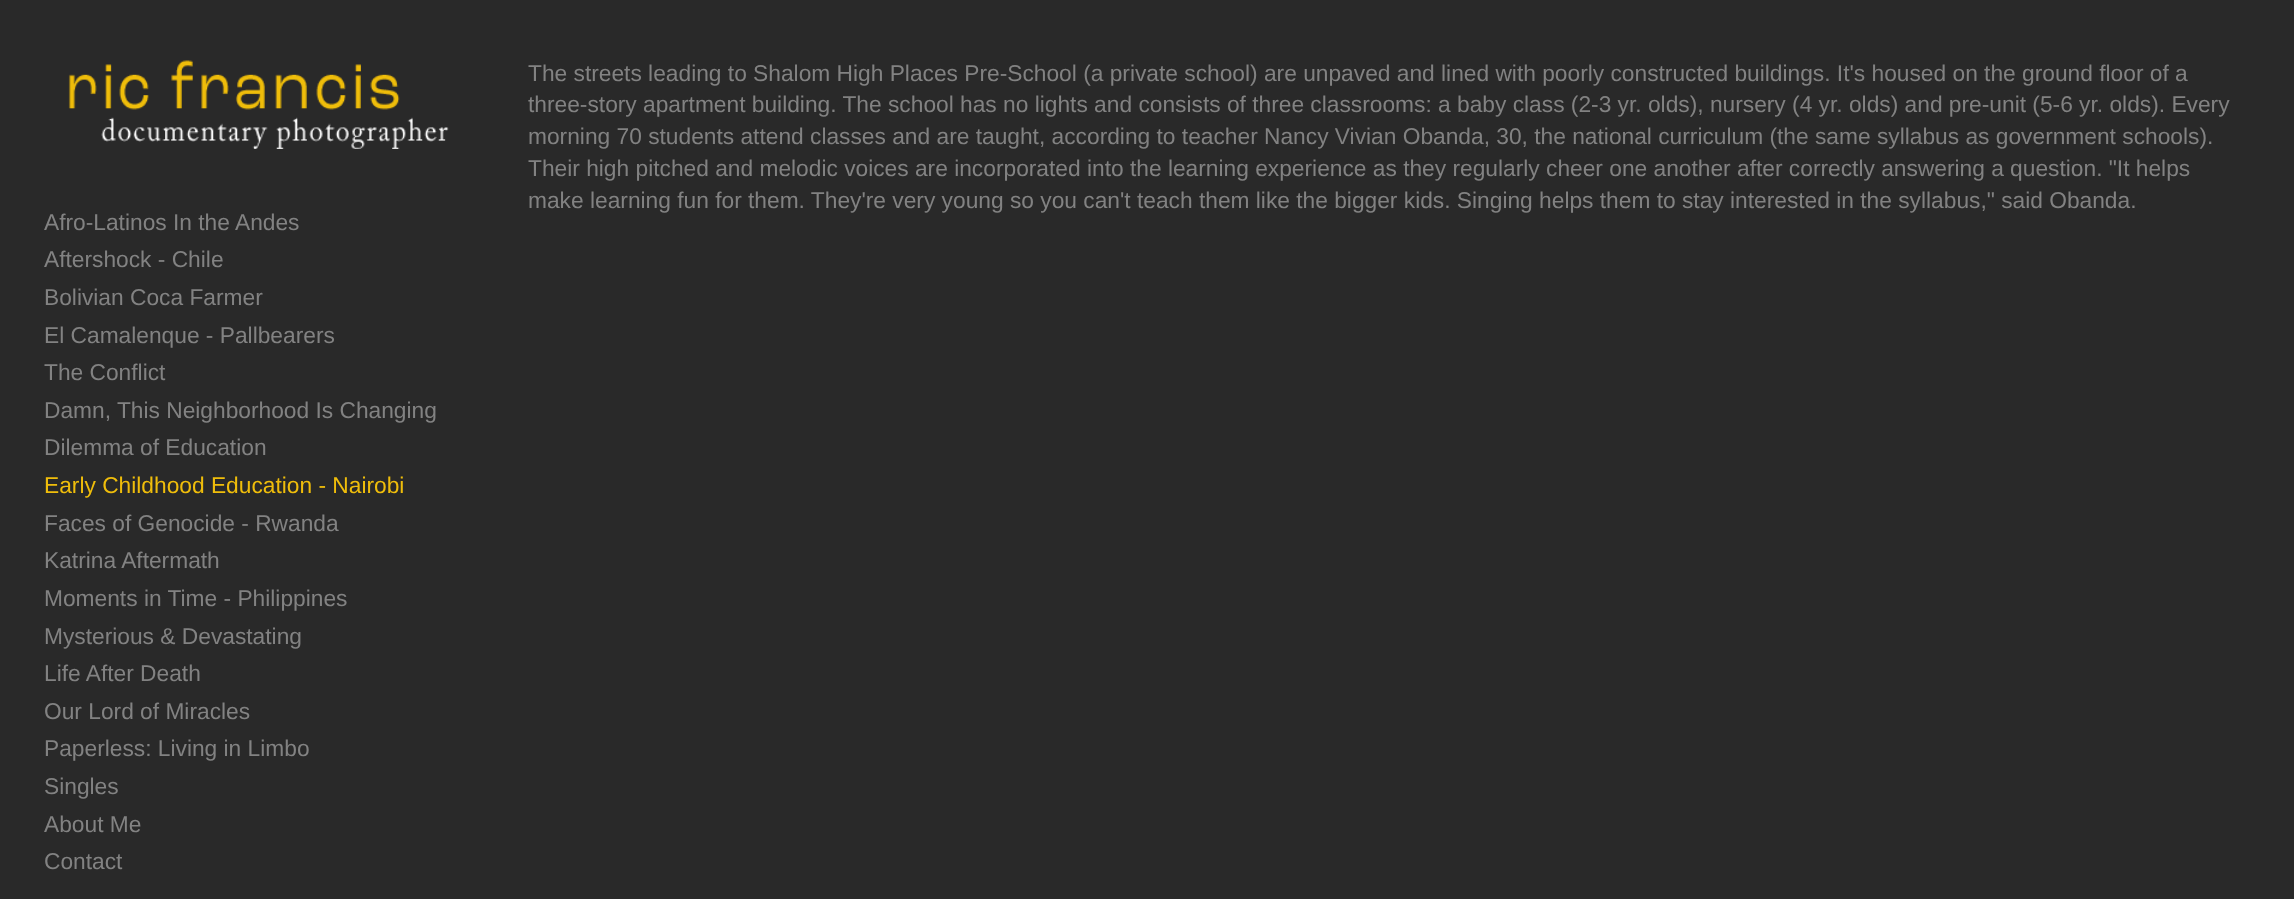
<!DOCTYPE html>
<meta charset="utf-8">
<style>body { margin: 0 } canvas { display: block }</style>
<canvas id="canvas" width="2294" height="899"></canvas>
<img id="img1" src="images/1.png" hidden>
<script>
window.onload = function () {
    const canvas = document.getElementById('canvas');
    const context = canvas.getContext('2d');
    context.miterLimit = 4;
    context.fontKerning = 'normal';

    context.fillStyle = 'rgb(41, 41, 41)';
    context.fillRect(0, 0, 2294, 899);
    context.drawImage(document.getElementById('img1'), 68, 60, 381, 89);
    context.font = '22.75px Liberation Sans';
    context.fillStyle = 'rgb(130, 130, 130)';
    context.fillText('The streets leading to Shalom High Places Pre-School (a private school) are unpaved and lined with poorly constructed buildings. It\'s housed on the ground floor of a', 528, 81);
    context.fillText('three-story apartment building. The school has no lights and consists of three classrooms: a baby class (2-3 yr. olds), nursery (4 yr. olds) and pre-unit (5-6 yr. olds). Every', 528, 112);
    context.fillText('morning 70 students attend classes and are taught, according to teacher Nancy Vivian Obanda, 30, the national curriculum (the same syllabus as government schools).', 528, 144);
    context.fillText('Their high pitched and melodic voices are incorporated into the learning experience as they regularly cheer one another after correctly answering a question. "It helps', 528, 176);
    context.fillText('make learning fun for them. They\'re very young so you can\'t teach them like the bigger kids. Singing helps them to stay interested in the syllabus," said Obanda.', 528, 208);
    context.fillText('Afro-Latinos In the Andes', 44, 230);
    context.fillText('Aftershock - Chile', 44, 267);
    context.fillText('Bolivian Coca Farmer', 44, 305);
    context.fillText('El Camalenque - Pallbearers', 44, 343);
    context.fillText('The Conflict', 44, 380);
    context.fillText('Damn, This Neighborhood Is Changing', 44, 418);
    context.fillText('Dilemma of Education', 44, 455);
    context.fillStyle = 'rgb(239, 189, 11)';
    context.fillText('Early Childhood Education - Nairobi', 44, 493);
    context.fillStyle = 'rgb(130, 130, 130)';
    context.fillText('Faces of Genocide - Rwanda', 44, 531);
    context.fillText('Katrina Aftermath', 44, 568);
    context.fillText('Moments in Time - Philippines', 44, 606);
    context.fillText('Mysterious & Devastating', 44, 644);
    context.fillText('Life After Death', 44, 681);
    context.fillText('Our Lord of Miracles', 44, 719);
    context.fillText('Paperless: Living in Limbo', 44, 756);
    context.fillText('Singles', 44, 794);
    context.fillText('About Me', 44, 832);
    context.fillText('Contact', 44, 869);
};
</script>
